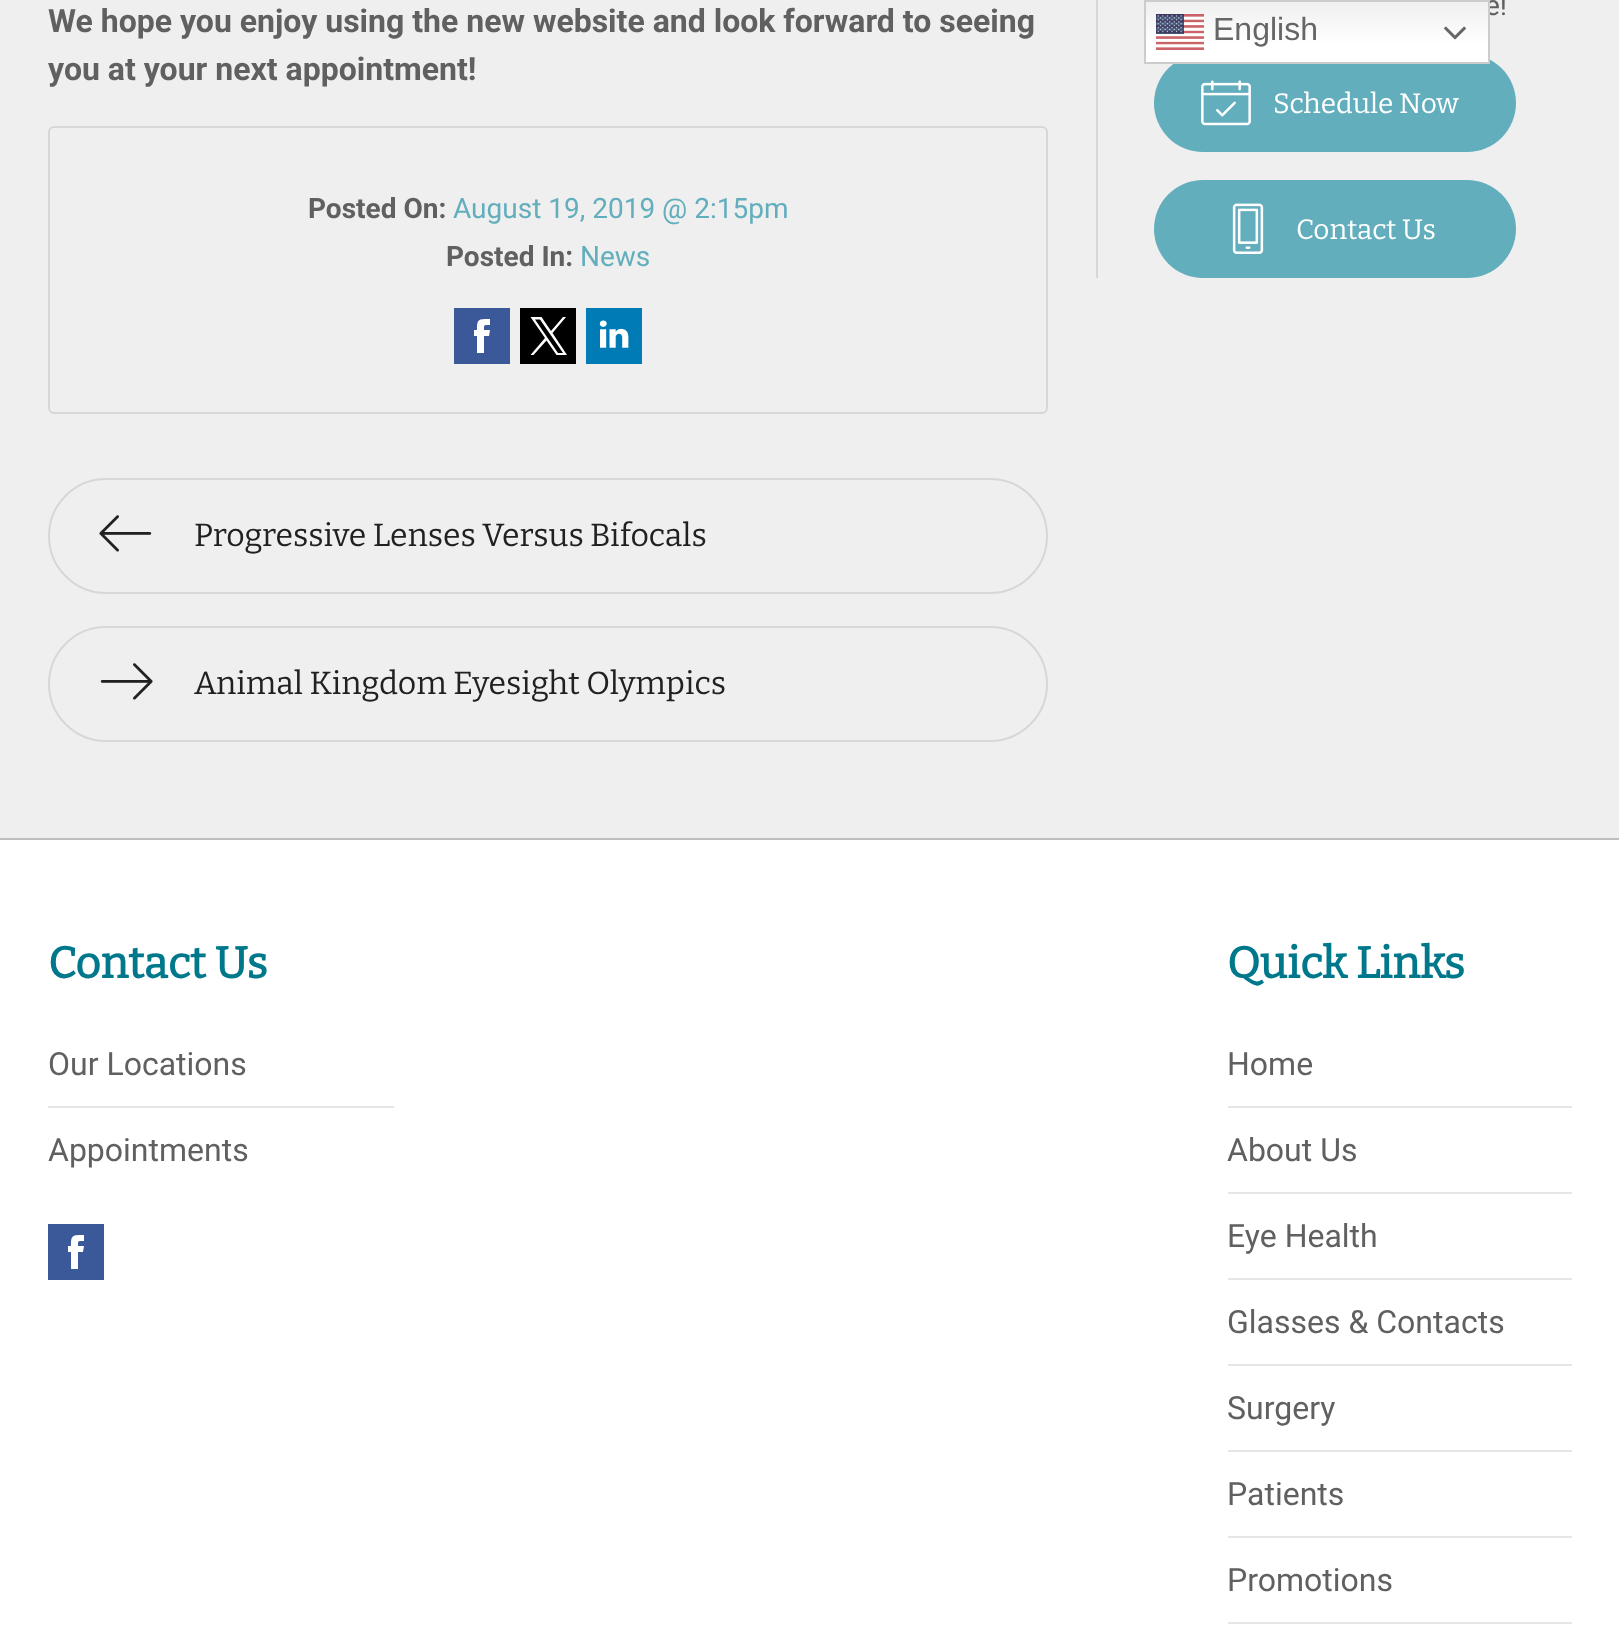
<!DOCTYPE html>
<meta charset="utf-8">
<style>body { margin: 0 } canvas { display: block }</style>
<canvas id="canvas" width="1619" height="1639"></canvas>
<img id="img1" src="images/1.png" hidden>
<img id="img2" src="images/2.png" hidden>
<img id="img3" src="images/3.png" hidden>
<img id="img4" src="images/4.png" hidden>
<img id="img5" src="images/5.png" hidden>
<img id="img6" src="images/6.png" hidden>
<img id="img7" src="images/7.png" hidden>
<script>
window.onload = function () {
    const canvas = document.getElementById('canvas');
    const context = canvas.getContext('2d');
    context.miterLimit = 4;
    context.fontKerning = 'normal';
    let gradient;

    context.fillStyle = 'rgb(239, 239, 239)';
    context.fillRect(0, 0, 1619, 1639);
    context.beginPath();
    context.roundRect(49, 127, 998, 286, 5);
    context.strokeStyle = 'rgb(215, 215, 215)';
    context.lineWidth = 2;
    context.stroke();
    context.fillStyle = 'rgb(255, 255, 255)';
    context.fillRect(474, 319, 16, 34);
    context.fillStyle = 'rgb(59, 89, 152)';
    context.beginPath();
    context.moveTo(454, 364);
    context.lineTo(510, 364);
    context.lineTo(510, 308);
    context.lineTo(454, 308);
    context.closePath();
    context.moveTo(474, 330);
    context.lineTo(477, 330);
    context.bezierCurveTo(477, 319, 478, 319, 490, 319);
    context.lineTo(490, 325);
    context.bezierCurveTo(484, 325, 484, 324, 484, 330);
    context.lineTo(490, 330);
    context.lineTo(489, 336);
    context.lineTo(484, 336);
    context.lineTo(484, 353);
    context.lineTo(477, 353);
    context.lineTo(477, 336);
    context.lineTo(474, 336);
    context.closePath();
    context.fill();
    context.fillStyle = 'rgb(0, 0, 0)';
    context.fillRect(520, 308, 56, 56);
    context.fillStyle = 'rgb(255, 255, 255)';
    context.beginPath();
    context.moveTo(552.5, 333);
    context.lineTo(566, 317);
    context.lineTo(563, 317);
    context.lineTo(551, 331);
    context.lineTo(541.5, 317);
    context.lineTo(530.5, 317);
    context.lineTo(545, 338);
    context.lineTo(530.5, 355);
    context.lineTo(533.5, 355);
    context.lineTo(546.5, 340.5);
    context.lineTo(556.5, 355);
    context.lineTo(567, 355);
    context.closePath();
    context.moveTo(548, 338.5);
    context.lineTo(535, 319.5);
    context.lineTo(540, 319.5);
    context.lineTo(563, 353);
    context.lineTo(558, 353);
    context.closePath();
    context.fill();
    context.fillRect(599, 320, 30, 28);
    context.drawImage(document.getElementById('img1'), 586, 308, 56, 56);
    context.beginPath();
    context.roundRect(49, 479, 998, 114, 57);
    context.stroke();
    context.drawImage(document.getElementById('img2'), 99, 515, 53, 37);
    context.beginPath();
    context.roundRect(49, 627, 998, 114, 57);
    context.stroke();
    context.drawImage(document.getElementById('img3'), 100, 663, 53, 37);
    context.fillStyle = 'rgb(215, 215, 215)';
    context.fillRect(1096, 0, 2, 278);
    context.fillStyle = 'rgb(98, 174, 188)';
    context.beginPath();
    context.roundRect(1154, 54, 362, 98, 49);
    context.fill();
    context.drawImage(document.getElementById('img4'), 1201, 80, 50, 46);
    context.beginPath();
    context.roundRect(1154, 180, 362, 98, 49);
    context.fill();
    context.drawImage(document.getElementById('img5'), 1232, 203, 32, 51);
    context.fillStyle = 'rgb(255, 255, 255)';
    context.fillRect(0, 840, 1619, 799);
    context.fillStyle = 'rgb(191, 191, 191)';
    context.fillRect(0, 838, 1619, 2);
    context.fillStyle = 'rgb(230, 230, 230)';
    context.fillRect(48, 1106, 346, 2);
    context.fillStyle = 'rgb(59, 89, 152)';
    context.beginPath();
    context.moveTo(48, 1280);
    context.lineTo(104, 1280);
    context.lineTo(104, 1224);
    context.lineTo(48, 1224);
    context.closePath();
    context.moveTo(68, 1246);
    context.lineTo(71, 1246);
    context.bezierCurveTo(71, 1235, 72, 1235, 84, 1235);
    context.lineTo(84, 1241);
    context.bezierCurveTo(78, 1241, 78, 1240, 78, 1246);
    context.lineTo(84, 1246);
    context.lineTo(83, 1252);
    context.lineTo(78, 1252);
    context.lineTo(78, 1269);
    context.lineTo(71, 1269);
    context.lineTo(71, 1252);
    context.lineTo(68, 1252);
    context.closePath();
    context.fill();
    context.fillStyle = 'rgb(230, 230, 230)';
    context.fillRect(1228, 1106, 344, 2);
    context.fillRect(1228, 1192, 344, 2);
    context.fillRect(1228, 1278, 344, 2);
    context.fillRect(1228, 1364, 344, 2);
    context.fillRect(1228, 1450, 344, 2);
    context.fillRect(1228, 1536, 344, 2);
    context.fillRect(1228, 1622, 344, 2);
    context.font = 'bold 32px Roboto';
    context.fillStyle = 'rgb(96, 96, 96)';
    context.fillText('We hope you enjoy using the new website and look forward to seeing', 48, 32);
    context.fillText('you at your next appointment!', 48, 80);
    context.font = 'bold 28px Roboto';
    context.fillText('Posted On:', 308, 218);
    context.font = '28px Roboto';
    context.fillStyle = 'rgb(98, 174, 188)';
    context.fillText('August 19, 2019 @ 2:15pm', 453, 218);
    context.font = 'bold 28px Roboto';
    context.fillStyle = 'rgb(96, 96, 96)';
    context.fillText('Posted In:', 446, 266);
    context.font = '28px Roboto';
    context.fillStyle = 'rgb(98, 174, 188)';
    context.fillText('News', 580, 266);
    context.font = '100 32px Bitter';
    context.fillStyle = 'rgb(33, 33, 33)';
    context.fillText('Progressive Lenses Versus Bifocals', 194, 546);
    context.fillText('Animal Kingdom Eyesight Olympics', 194, 694);
    context.font = '28px Roboto';
    context.fillStyle = 'rgb(96, 96, 96)';
    context.fillText('e!', 1485, 15);
    context.font = '100 28px Bitter';
    context.fillStyle = 'rgb(255, 255, 255)';
    context.fillText('Schedule Now', 1273, 113);
    context.fillText('Contact Us', 1296, 239);
    context.font = 'bold 44px Bitter';
    context.fillStyle = 'rgb(0, 120, 139)';
    context.fillText('Contact Us', 48, 978);
    context.font = '32px Roboto';
    context.fillStyle = 'rgb(96, 96, 96)';
    context.fillText('Our Locations', 48, 1075);
    context.fillText('Appointments', 48, 1161);
    context.font = 'bold 44px Bitter';
    context.fillStyle = 'rgb(0, 120, 139)';
    context.fillText('Quick Links', 1227, 978);
    context.font = '32px Roboto';
    context.fillStyle = 'rgb(96, 96, 96)';
    context.fillText('Home', 1227, 1075);
    context.fillText('About Us', 1227, 1161);
    context.fillText('Eye Health', 1227, 1247);
    context.fillText('Glasses & Contacts', 1227, 1333);
    context.fillText('Surgery', 1227, 1419);
    context.fillText('Patients', 1227, 1505);
    context.fillText('Promotions', 1227, 1591);
    gradient = context.createLinearGradient(1317, 0, 1317, 64);
    gradient.addColorStop(0, 'rgb(239, 239, 239)');
    gradient.addColorStop(0.7, 'rgb(255, 255, 255)');
    context.fillStyle = gradient;
    context.fillRect(1146, 2, 342, 60);
    context.strokeStyle = 'rgb(204, 204, 204)';
    context.strokeRect(1145, 1, 344, 62);
    context.drawImage(document.getElementById('img6'), 1156, 14, 48, 36);
    context.font = '32px Liberation Sans';
    context.fillStyle = 'rgb(102, 102, 102)';
    context.fillText('English', 1213, 40);
    context.drawImage(document.getElementById('img7'), 1444, 26, 22, 14);
};
</script>
